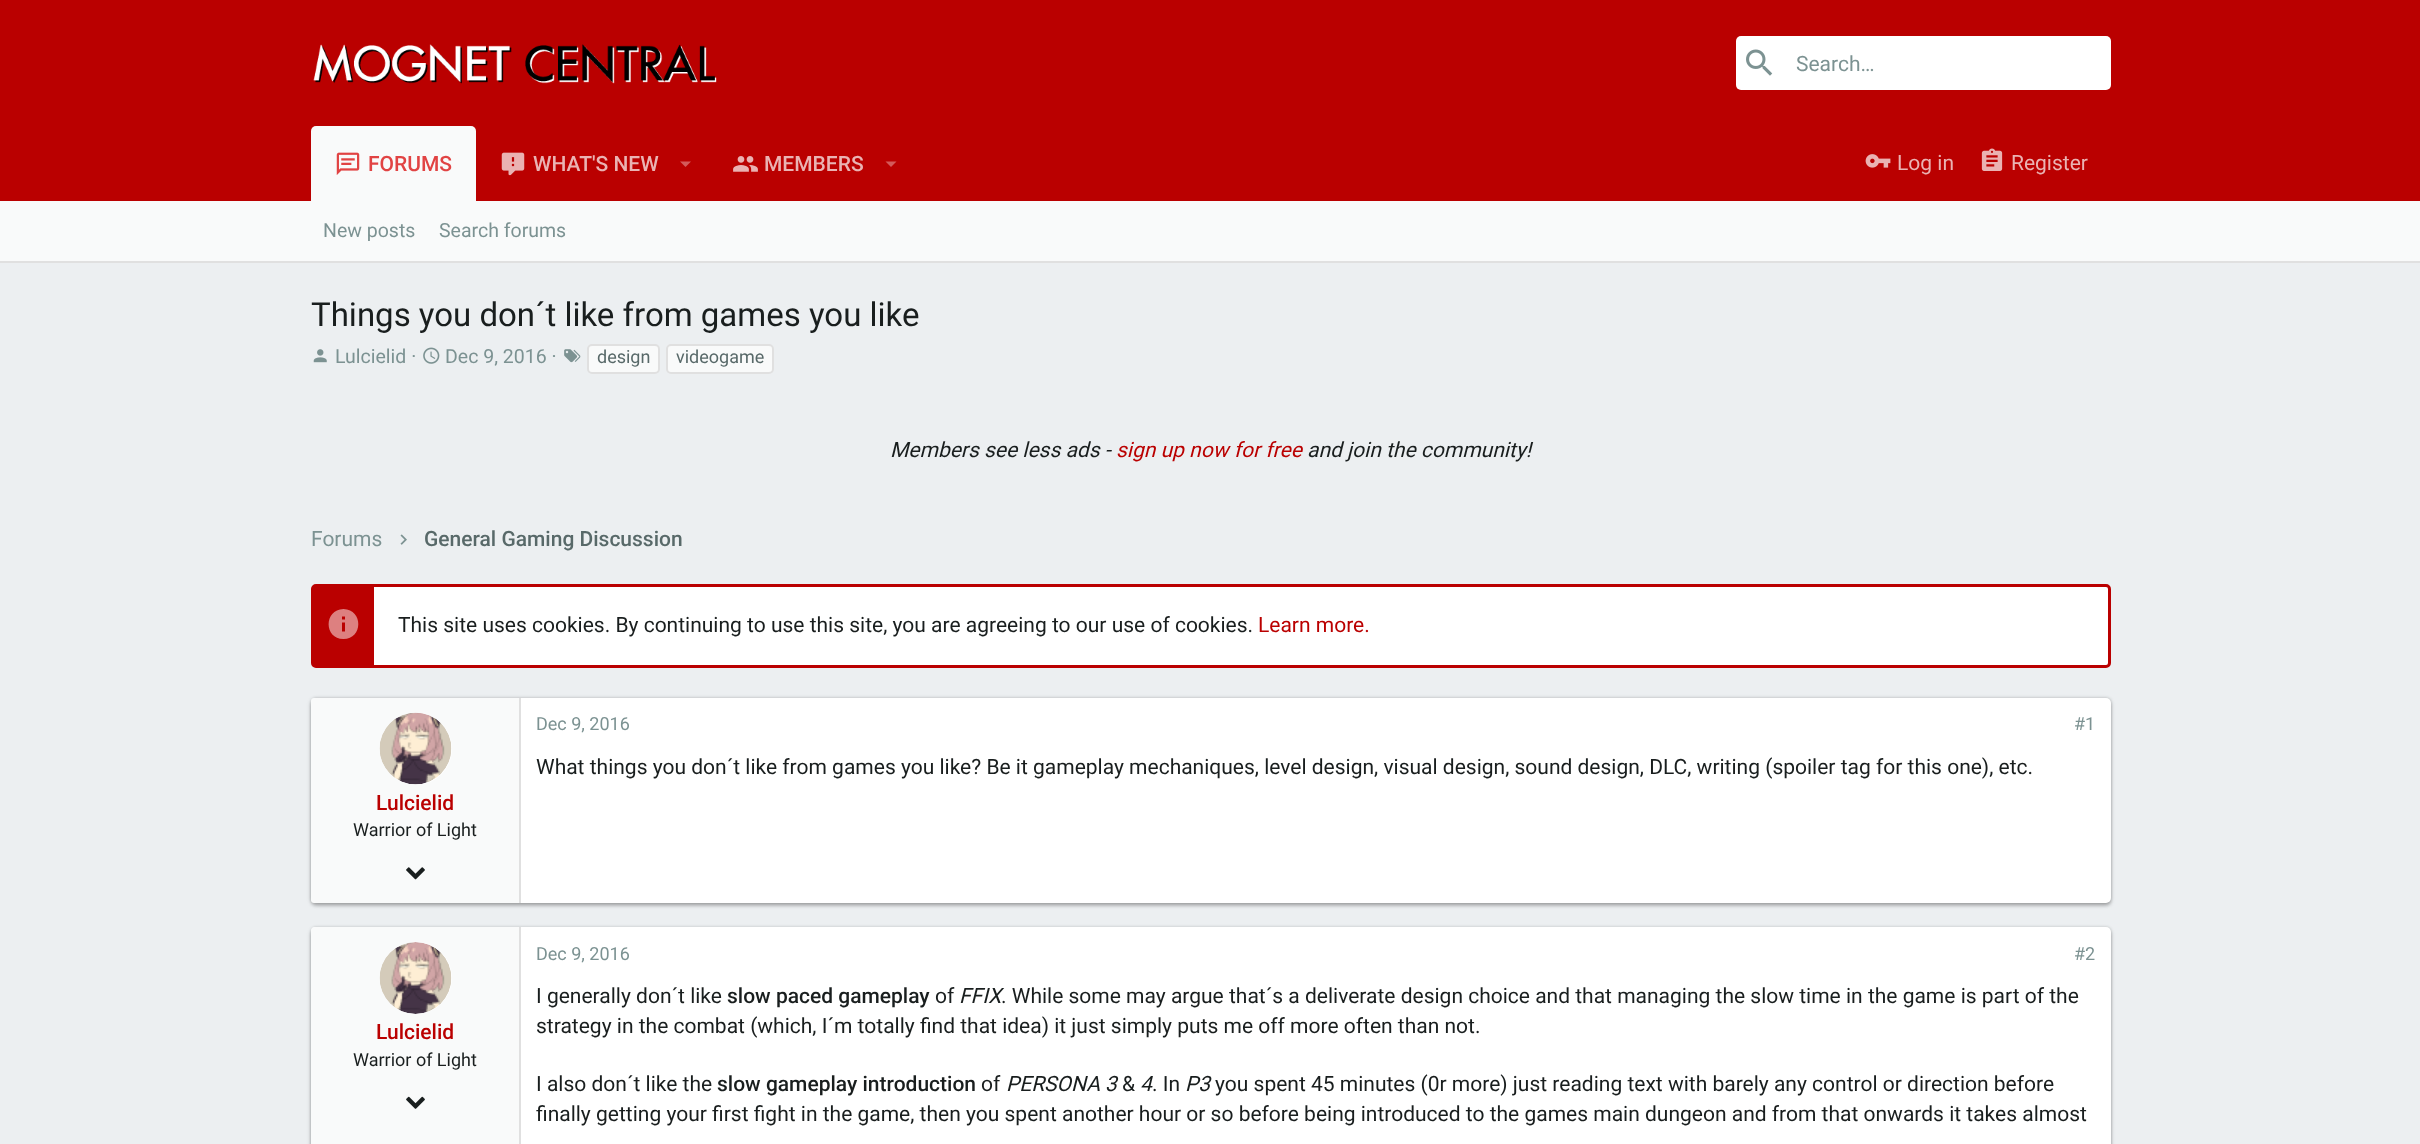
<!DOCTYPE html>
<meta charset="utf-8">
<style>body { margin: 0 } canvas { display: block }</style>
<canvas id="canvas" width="2420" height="1144"></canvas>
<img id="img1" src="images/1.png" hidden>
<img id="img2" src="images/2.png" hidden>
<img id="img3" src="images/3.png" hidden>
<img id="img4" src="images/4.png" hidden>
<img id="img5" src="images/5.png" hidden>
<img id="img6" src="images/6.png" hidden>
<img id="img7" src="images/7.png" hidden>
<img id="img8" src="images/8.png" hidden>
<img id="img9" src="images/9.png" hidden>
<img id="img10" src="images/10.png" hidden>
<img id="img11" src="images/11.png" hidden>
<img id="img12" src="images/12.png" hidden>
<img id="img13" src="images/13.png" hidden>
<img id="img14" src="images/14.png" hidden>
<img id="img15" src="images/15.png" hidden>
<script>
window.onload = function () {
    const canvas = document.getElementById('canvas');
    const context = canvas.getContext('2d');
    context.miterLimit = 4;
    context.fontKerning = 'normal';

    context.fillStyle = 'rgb(236, 239, 241)';
    context.fillRect(0, 0, 2420, 1144);
    context.fillStyle = 'rgb(186, 0, 0)';
    context.fillRect(0, 0, 2420, 201);
    context.drawImage(document.getElementById('img1'), 313, 44, 404, 40);
    context.fillStyle = 'rgb(255, 255, 255)';
    context.beginPath();
    context.roundRect(1736, 36, 375, 54, 5);
    context.fill();
    context.drawImage(document.getElementById('img2'), 1746, 49, 27, 27);
    context.fillStyle = 'rgb(249, 250, 250)';
    context.beginPath();
    context.roundRect(311, 126, 165, 75, [5, 5, 0, 0]);
    context.fill();
    context.drawImage(document.getElementById('img3'), 336, 152, 24, 23);
    context.drawImage(document.getElementById('img4'), 501, 152, 24, 24);
    context.fillStyle = 'rgb(211, 90, 90)';
    context.beginPath();
    context.moveTo(680, 161.5);
    context.lineTo(685.5, 167);
    context.lineTo(691, 161.5);
    context.closePath();
    context.fill();
    context.drawImage(document.getElementById('img5'), 733, 156, 25, 16);
    context.beginPath();
    context.moveTo(885.5, 161.5);
    context.lineTo(891, 167);
    context.lineTo(896.5, 161.5);
    context.closePath();
    context.fill();
    context.drawImage(document.getElementById('img6'), 1865, 154, 26, 14);
    context.drawImage(document.getElementById('img7'), 1981, 148, 22, 23);
    context.fillStyle = 'rgb(249, 250, 250)';
    context.fillRect(0, 201, 2420, 60);
    context.fillStyle = 'rgb(224, 224, 224)';
    context.fillRect(0, 261, 2420, 2);
    context.drawImage(document.getElementById('img8'), 313, 349, 14, 14);
    context.drawImage(document.getElementById('img9'), 423, 347, 17, 17);
    context.drawImage(document.getElementById('img10'), 564, 349, 17, 14);
    context.fillStyle = 'rgb(249, 250, 250)';
    context.beginPath();
    context.roundRect(588, 345, 71, 28, 4);
    context.fill();
    context.strokeStyle = 'rgb(224, 224, 224)';
    context.lineWidth = 2;
    context.stroke();
    context.beginPath();
    context.roundRect(667, 345, 106, 28, 4);
    context.fill();
    context.stroke();
    context.drawImage(document.getElementById('img11'), 400, 534, 7, 11);
    context.fillStyle = 'rgb(255, 255, 255)';
    context.beginPath();
    context.roundRect(312.5, 585.5, 1797, 81, 3.5);
    context.fill();
    context.strokeStyle = 'rgb(186, 0, 0)';
    context.lineWidth = 3;
    context.stroke();
    context.fillStyle = 'rgb(186, 0, 0)';
    context.fillRect(314, 587, 60, 78);
    context.fillStyle = 'rgb(221, 128, 128)';
    context.beginPath();
    context.moveTo(345, 619.5);
    context.lineTo(342, 619.5);
    context.lineTo(342, 616.5);
    context.lineTo(345, 616.5);
    context.closePath();
    context.moveTo(345, 631.5);
    context.lineTo(342, 631.5);
    context.lineTo(342, 622.5);
    context.lineTo(345, 622.5);
    context.closePath();
    context.moveTo(343.5, 609);
    context.bezierCurveTo(323.5, 609.5, 324, 639, 343.5, 639);
    context.bezierCurveTo(363, 639, 363.5, 609.5, 343.5, 609);
    context.closePath();
    context.fill();
    context.fillStyle = 'rgba(0, 0, 0, 0.2)';
    context.filter = 'blur(2px)';
    context.beginPath();
    context.roundRect(311, 699, 1800, 206, 5);
    context.fill();
    context.filter = 'none';
    context.fillStyle = 'rgba(0, 0, 0, 0.12)';
    context.filter = 'blur(1.5px)';
    context.beginPath();
    context.roundRect(311, 701, 1800, 205, 5);
    context.fill();
    context.filter = 'none';
    context.fillStyle = 'rgba(0, 0, 0, 0.14)';
    context.filter = 'blur(1.5px)';
    context.beginPath();
    context.roundRect(311, 698, 1800, 205, 5);
    context.fill();
    context.filter = 'none';
    context.fillStyle = 'rgb(255, 255, 255)';
    context.beginPath();
    context.roundRect(311, 698, 1800, 205, 5);
    context.fill();
    context.fillStyle = 'rgb(249, 250, 250)';
    context.beginPath();
    context.roundRect(311, 698, 210, 205, [3, 0, 0, 3]);
    context.fill();
    context.fillStyle = 'rgb(224, 224, 224)';
    context.fillRect(519, 698, 2, 205);
    context.fillStyle = 'rgb(255, 255, 255)';
    context.beginPath();
    context.arc(416, 749, 36, 0, 2 * Math.PI);
    context.fill();
    context.drawImage(document.getElementById('img12'), 379, 712, 73, 73);
    context.drawImage(document.getElementById('img13'), 406, 867, 19, 13);
    context.fillStyle = 'rgba(0, 0, 0, 0.2)';
    context.filter = 'blur(2px)';
    context.beginPath();
    context.roundRect(311, 929, 1800, 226, 5);
    context.fill();
    context.filter = 'none';
    context.fillStyle = 'rgba(0, 0, 0, 0.12)';
    context.filter = 'blur(1.5px)';
    context.beginPath();
    context.roundRect(311, 930, 1800, 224, 5);
    context.fill();
    context.filter = 'none';
    context.fillStyle = 'rgba(0, 0, 0, 0.14)';
    context.filter = 'blur(1.5px)';
    context.beginPath();
    context.roundRect(311, 927, 1800, 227, 5);
    context.fill();
    context.filter = 'none';
    context.fillStyle = 'rgb(255, 255, 255)';
    context.beginPath();
    context.roundRect(311, 927, 1800, 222, 5);
    context.fill();
    context.fillStyle = 'rgb(249, 250, 250)';
    context.beginPath();
    context.moveTo(314, 927);
    context.lineTo(521, 927);
    context.lineTo(521, 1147);
    context.lineTo(314, 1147);
    context.bezierCurveTo(312.5, 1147, 311, 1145.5, 311, 1144);
    context.lineTo(311, 930);
    context.bezierCurveTo(311, 928.5, 312.5, 927, 314, 927);
    context.closePath();
    context.fill();
    context.fillStyle = 'rgb(224, 224, 224)';
    context.fillRect(519, 927, 2, 217);
    context.fillStyle = 'rgb(255, 255, 255)';
    context.beginPath();
    context.arc(416, 978, 36, 0, 2 * Math.PI);
    context.fill();
    context.drawImage(document.getElementById('img14'), 379, 942, 73, 72);
    context.drawImage(document.getElementById('img15'), 406, 1096, 19, 13);
    context.font = '21px Roboto';
    context.fillStyle = 'rgb(124, 146, 146)';
    context.fillText('Search…', 1796, 71);
    context.font = '500 21px Roboto';
    context.fillStyle = 'rgb(225, 67, 67)';
    context.fillText('FORUMS', 368, 171);
    context.fillStyle = 'rgb(234, 179, 179)';
    context.fillText('WHAT\'S NEW', 533, 171);
    context.fillText('MEMBERS', 764, 171);
    context.font = '21px Roboto';
    context.fillText('Log in', 1897, 170);
    context.fillText('Register', 2011, 170);
    context.font = '19.5px Roboto';
    context.fillStyle = 'rgb(124, 146, 146)';
    context.fillText('New posts', 323, 237);
    context.fillText('Search forums', 439, 237);
    context.font = '33px Roboto';
    context.fillStyle = 'rgb(25, 30, 30)';
    context.fillText('Things you don´t like from games you like', 311, 326);
    context.font = '19.5px Roboto';
    context.fillStyle = 'rgb(124, 146, 146)';
    context.fillText('Lulcielid ·', 335, 363);
    context.fillText('Dec 9, 2016 ·', 445, 363);
    context.font = '18px Roboto';
    context.fillStyle = 'rgb(88, 105, 105)';
    context.fillText('design', 597, 363);
    context.fillText('videogame', 676, 363);
    context.font = 'italic 21px Roboto';
    context.fillStyle = 'rgb(25, 30, 30)';
    context.fillText('Members see less ads -', 890, 457);
    context.fillStyle = 'rgb(186, 0, 0)';
    context.fillText('sign up now for free', 1116, 457);
    context.fillStyle = 'rgb(25, 30, 30)';
    context.fillText('and join the community!', 1307, 457);
    context.font = '21px Roboto';
    context.fillStyle = 'rgb(124, 146, 146)';
    context.fillText('Forums', 311, 546);
    context.font = '500 21px Roboto';
    context.fillStyle = 'rgb(88, 105, 105)';
    context.fillText('General Gaming Discussion', 424, 546);
    context.font = '21px Roboto';
    context.fillStyle = 'rgb(25, 30, 30)';
    context.fillText('This site uses cookies. By continuing to use this site, you are agreeing to our use of cookies.', 398, 632);
    context.fillStyle = 'rgb(186, 0, 0)';
    context.fillText('Learn more.', 1258, 632);
    context.font = '18px Roboto';
    context.fillStyle = 'rgb(124, 146, 146)';
    context.fillText('Dec 9, 2016', 536, 730);
    context.fillText('#1', 2074, 730);
    context.font = '21px Roboto';
    context.fillStyle = 'rgb(25, 30, 30)';
    context.fillText('What things you don´t like from games you like? Be it gameplay mechaniques, level design, visual design, sound design, DLC, writing (spoiler tag for this one), etc.', 536, 774);
    context.font = '500 21px Roboto';
    context.fillStyle = 'rgb(186, 0, 0)';
    context.fillText('Lulcielid', 376, 810);
    context.font = '18px Roboto';
    context.fillStyle = 'rgb(25, 30, 30)';
    context.fillText('Warrior of Light', 353, 836);
    context.font = '500 21px Roboto';
    context.fillStyle = 'rgb(186, 0, 0)';
    context.fillText('Lulcielid', 376, 1039);
    context.font = '18px Roboto';
    context.fillStyle = 'rgb(25, 30, 30)';
    context.fillText('Warrior of Light', 353, 1066);
    context.fillStyle = 'rgb(124, 146, 146)';
    context.fillText('Dec 9, 2016', 536, 960);
    context.fillText('#2', 2074, 960);
    context.font = '21px Roboto';
    context.fillStyle = 'rgb(25, 30, 30)';
    context.fillText('I generally don´t like', 536, 1003);
    context.font = '500 21px Roboto';
    context.fillText('slow paced gameplay', 727, 1003);
    context.font = '21px Roboto';
    context.fillText('of', 935, 1003);
    context.font = 'italic 21px Roboto';
    context.fillText('FFIX', 959, 1003);
    context.font = '21px Roboto';
    context.fillText('. While some may argue that´s a deliverate design choice and that managing the slow time in the game is part of the', 1001, 1003);
    context.fillText('strategy in the combat (which, I´m totally find that idea) it just simply puts me off more often than not.', 536, 1033);
    context.fillText('I also don´t like the', 536, 1091);
    context.font = '500 21px Roboto';
    context.fillText('slow gameplay introduction', 717, 1091);
    context.font = '21px Roboto';
    context.fillText('of', 981, 1091);
    context.font = 'italic 21px Roboto';
    context.fillText('PERSONA 3', 1006, 1091);
    context.font = '21px Roboto';
    context.fillText('&', 1122, 1091);
    context.font = 'italic 21px Roboto';
    context.fillText('4', 1140, 1091);
    context.font = '21px Roboto';
    context.fillText('. In', 1152, 1091);
    context.font = 'italic 21px Roboto';
    context.fillText('P3', 1185, 1091);
    context.font = '21px Roboto';
    context.fillText('you spent 45 minutes (0r more) just reading text with barely any control or direction before', 1215, 1091);
    context.fillText('finally getting your first fight in the game, then you spent another hour or so before being introduced to the games main dungeon and from that onwards it takes almost', 536, 1121);
};
</script>
